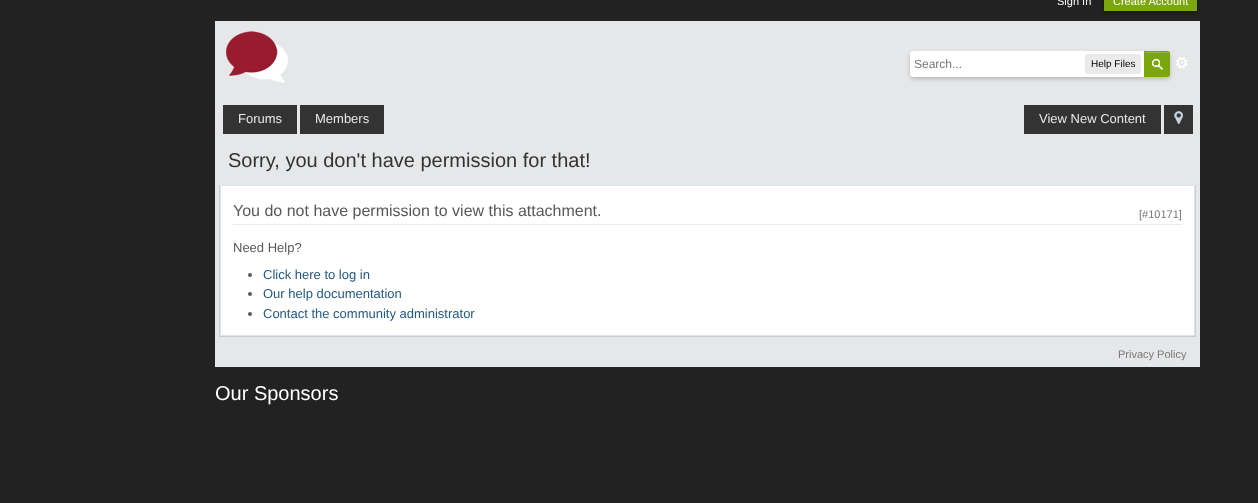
<!DOCTYPE html>
<meta charset="utf-8">
<style>body { margin: 0 } canvas { display: block }</style>
<canvas id="canvas" width="1258" height="503"></canvas>
<img id="img1" src="images/1.png" hidden>
<img id="img2" src="images/3.png" hidden>
<img id="img3" src="images/2.png" hidden>
<img id="img4" src="images/4.png" hidden>
<script>
window.onload = function () {
    const canvas = document.getElementById('canvas');
    const context = canvas.getContext('2d');
    context.miterLimit = 4;
    context.fontKerning = 'normal';

    context.fillStyle = 'rgb(34, 34, 34)';
    context.fillRect(0, 0, 1258, 503);
    context.fillStyle = 'rgba(0, 0, 0, 0.4)';
    context.filter = 'blur(2px)';
    context.beginPath();
    context.rect(1104, -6, 93, 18);
    context.fill();
    context.filter = 'none';
    context.fillStyle = 'rgb(123, 166, 13)';
    context.fillRect(1104, 0, 93, 11);
    context.fillStyle = 'rgb(230, 231, 232)';
    context.fillRect(215, 21, 985, 346);
    context.drawImage(document.getElementById('img1'), 226, 31, 62, 52);
    context.drawImage(document.getElementById('img2'), 1176, 57, 12, 12);
    context.fillStyle = 'rgba(0, 0, 0, 0.2)';
    context.filter = 'blur(2px)';
    context.beginPath();
    context.roundRect(910, 53, 260, 26, 4);
    context.fill();
    context.filter = 'none';
    context.fillStyle = 'rgb(255, 255, 255)';
    context.beginPath();
    context.roundRect(910, 51, 260, 26, [3, 4, 4, 3]);
    context.fill();
    context.fillStyle = 'rgb(234, 234, 234)';
    context.beginPath();
    context.roundRect(1085, 54, 56, 20, 3);
    context.fill();
    context.fillStyle = 'rgb(123, 166, 13)';
    context.beginPath();
    context.roundRect(1144, 51, 26, 26, [0, 3, 3, 0]);
    context.fill();
    context.drawImage(document.getElementById('img3'), 1152, 59, 11, 11);
    context.fillStyle = 'rgb(149, 184, 61)';
    context.beginPath();
    context.moveTo(1145, 53);
    context.lineTo(1167, 53);
    context.bezierCurveTo(1168, 53, 1169, 54, 1169, 55);
    context.lineTo(1169, 54);
    context.bezierCurveTo(1169, 53, 1168, 52, 1167, 52);
    context.lineTo(1145, 52);
    context.closePath();
    context.fill();
    context.beginPath();
    context.roundRect(1144.5, 51.5, 25, 25, [0, 2.5, 2.5, 0]);
    context.strokeStyle = 'rgb(123, 166, 13)';
    context.stroke();
    context.fillStyle = 'rgb(51, 51, 51)';
    context.fillRect(223, 105, 74, 29);
    context.fillRect(300, 105, 84, 29);
    context.fillRect(1024, 105, 137, 29);
    context.fillRect(1164, 105, 29, 29);
    context.drawImage(document.getElementById('img4'), 1174, 111, 9, 13);
    context.fillStyle = 'rgb(204, 204, 204)';
    context.fillRect(1195, 185, 1, 152);
    context.fillRect(219, 336, 977, 1);
    context.fillRect(219, 185, 1, 152);
    context.fillStyle = 'rgb(255, 255, 255)';
    context.beginPath();
    context.rect(220.5, 185.5, 974, 150);
    context.fill();
    context.strokeStyle = 'rgb(219, 228, 239)';
    context.stroke();
    context.fillStyle = 'rgb(236, 236, 236)';
    context.fillRect(233, 224, 949, 1);
    context.fillStyle = 'rgb(90, 90, 90)';
    context.beginPath();
    context.arc(250, 275, 2, 0, 2 * Math.PI);
    context.fill();
    context.beginPath();
    context.arc(250, 294, 2, 0, 2 * Math.PI);
    context.fill();
    context.beginPath();
    context.arc(250, 314, 2, 0, 2 * Math.PI);
    context.fill();
    context.font = '11px Liberation Sans';
    context.fillStyle = 'rgb(255, 255, 255)';
    context.fillText('Sign In', 1057, 5);
    context.fillText('Create Account', 1113, 5);
    context.font = '12px Liberation Sans';
    context.fillStyle = 'rgb(119, 119, 119)';
    context.fillText('Search...', 914, 68);
    context.font = '10px Liberation Sans';
    context.fillStyle = 'rgb(0, 0, 0)';
    context.fillText('Help Files', 1091, 67);
    context.font = '13px Liberation Sans';
    context.fillStyle = 'rgb(230, 231, 232)';
    context.fillText('Forums', 238, 123);
    context.fillText('Members', 315, 123);
    context.fillText('View New Content', 1039, 123);
    context.font = '20px Liberation Sans';
    context.fillStyle = 'rgb(51, 51, 51)';
    context.fillText('Sorry, you don\'t have permission for that!', 228, 167);
    context.font = '16px Liberation Sans';
    context.fillStyle = 'rgb(89, 89, 89)';
    context.fillText('You do not have permission to view this attachment.', 233, 216);
    context.font = '11px Liberation Sans';
    context.fillStyle = 'rgb(119, 119, 119)';
    context.fillText('[#10171]', 1139, 218);
    context.font = '13px Liberation Sans';
    context.fillStyle = 'rgb(89, 89, 89)';
    context.fillText('Need Help?', 233, 252);
    context.fillStyle = 'rgb(34, 89, 133)';
    context.fillText('Click here to log in', 263, 279);
    context.fillText('Our help documentation', 263, 298);
    context.fillText('Contact the community administrator', 263, 318);
    context.font = '11px Liberation Sans';
    context.fillStyle = 'rgb(119, 119, 119)';
    context.fillText('Privacy Policy', 1118, 358);
    context.font = '20px Liberation Sans';
    context.fillStyle = 'rgb(255, 255, 255)';
    context.fillText('Our Sponsors', 215, 400);
};
</script>
